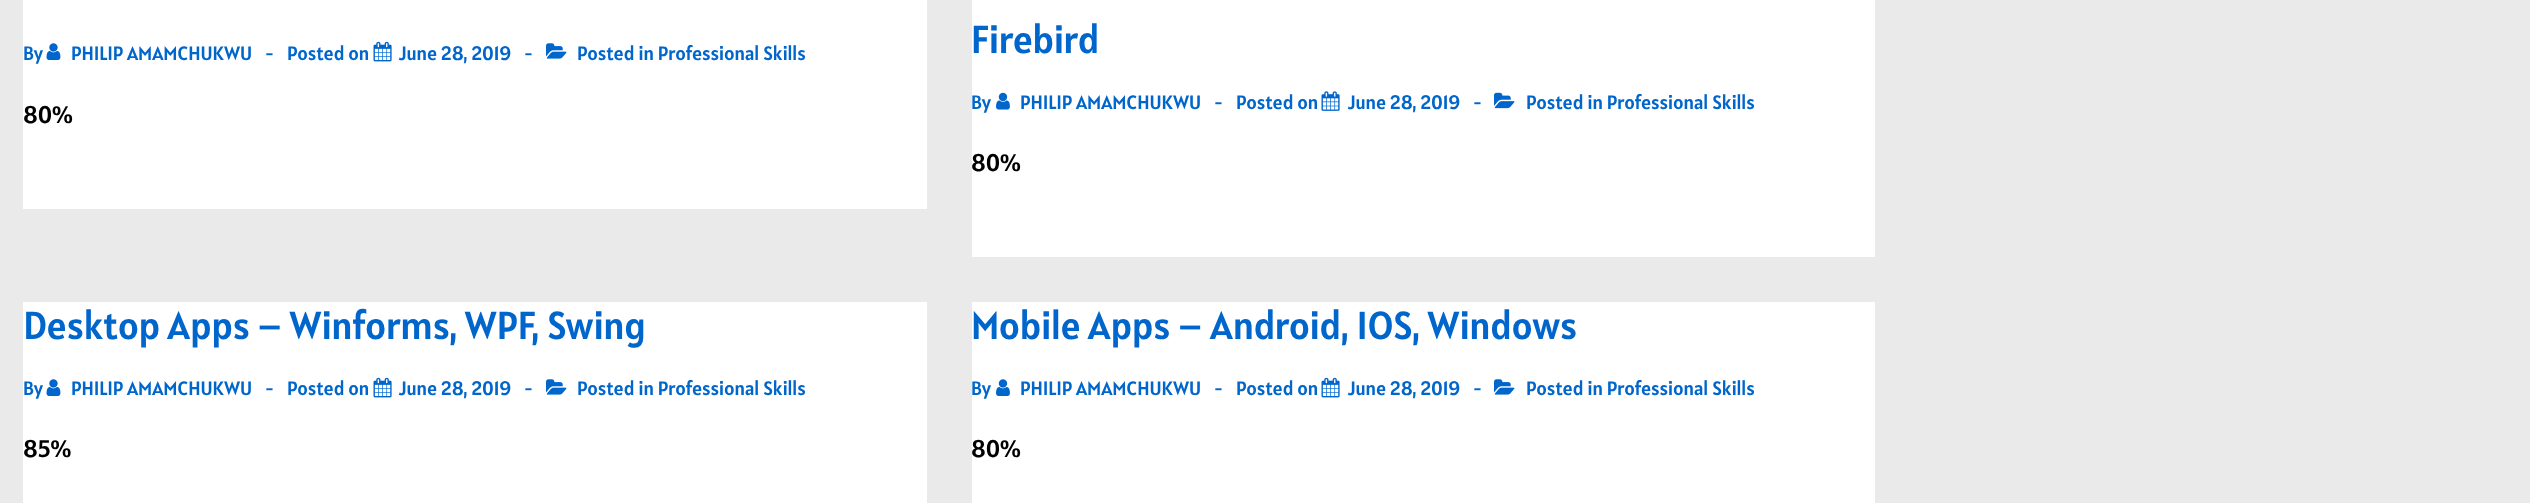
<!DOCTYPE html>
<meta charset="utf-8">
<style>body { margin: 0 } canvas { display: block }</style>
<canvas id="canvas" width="2530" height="503"></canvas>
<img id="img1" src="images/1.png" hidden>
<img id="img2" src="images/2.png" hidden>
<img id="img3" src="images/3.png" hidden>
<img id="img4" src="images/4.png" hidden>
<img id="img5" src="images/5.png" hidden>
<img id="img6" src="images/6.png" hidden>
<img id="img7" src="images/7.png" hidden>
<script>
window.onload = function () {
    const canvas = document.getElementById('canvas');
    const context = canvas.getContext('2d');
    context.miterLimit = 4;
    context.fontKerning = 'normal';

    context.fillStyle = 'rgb(234, 234, 234)';
    context.fillRect(0, 0, 2530, 503);
    context.fillStyle = 'rgb(255, 255, 255)';
    context.fillRect(23, 0, 904, 209);
    context.drawImage(document.getElementById('img1'), 46, 43, 15, 17);
    context.drawImage(document.getElementById('img2'), 373, 41, 19, 21);
    context.drawImage(document.getElementById('img3'), 546, 43, 21, 16);
    context.fillRect(972, 0, 903, 257);
    context.drawImage(document.getElementById('img4'), 996, 92, 14, 18);
    context.drawImage(document.getElementById('img5'), 1321, 91, 19, 20);
    context.drawImage(document.getElementById('img6'), 1494, 92, 21, 17);
    context.fillRect(23, 302, 904, 201);
    context.drawImage(document.getElementById('img1'), 46, 379, 15, 17);
    context.drawImage(document.getElementById('img2'), 373, 377, 19, 21);
    context.drawImage(document.getElementById('img3'), 546, 379, 21, 16);
    context.fillRect(972, 302, 903, 201);
    context.drawImage(document.getElementById('img7'), 996, 379, 14, 17);
    context.drawImage(document.getElementById('img2'), 1321, 377, 19, 21);
    context.drawImage(document.getElementById('img3'), 1494, 379, 21, 16);
    context.font = '19.5px Alatsi';
    context.fillStyle = 'rgb(0, 102, 204)';
    context.fillText('By', 23, 60);
    context.fillText('PHILIP AMAMCHUKWU', 71, 60);
    context.fillText('-', 265, 60);
    context.fillText('Posted on', 287, 60);
    context.fillText('June 28, 2019', 399, 60);
    context.fillText('-', 524, 60);
    context.fillText('Posted in Professional Skills', 577, 60);
    context.font = '24px Alatsi';
    context.fillStyle = 'rgb(0, 0, 0)';
    context.fillText('80%', 23, 123);
    context.font = '39px Alatsi';
    context.fillStyle = 'rgb(0, 102, 204)';
    context.fillText('Firebird', 971, 53);
    context.font = '19.5px Alatsi';
    context.fillText('By', 971, 109);
    context.fillText('PHILIP AMAMCHUKWU', 1020, 109);
    context.fillText('-', 1214, 109);
    context.fillText('Posted on', 1236, 109);
    context.fillText('June 28, 2019', 1348, 109);
    context.fillText('-', 1473, 109);
    context.fillText('Posted in Professional Skills', 1526, 109);
    context.font = '24px Alatsi';
    context.fillStyle = 'rgb(0, 0, 0)';
    context.fillText('80%', 971, 171);
    context.font = '39px Alatsi';
    context.fillStyle = 'rgb(0, 102, 204)';
    context.fillText('Desktop Apps – Winforms, WPF, Swing', 23, 339);
    context.font = '19.5px Alatsi';
    context.fillText('By', 23, 395);
    context.fillText('PHILIP AMAMCHUKWU', 71, 395);
    context.fillText('-', 265, 395);
    context.fillText('Posted on', 287, 395);
    context.fillText('June 28, 2019', 399, 395);
    context.fillText('-', 524, 395);
    context.fillText('Posted in Professional Skills', 577, 395);
    context.font = '24px Alatsi';
    context.fillStyle = 'rgb(0, 0, 0)';
    context.fillText('85%', 23, 457);
    context.font = '39px Alatsi';
    context.fillStyle = 'rgb(0, 102, 204)';
    context.fillText('Mobile Apps – Android, IOS, Windows', 971, 339);
    context.font = '19.5px Alatsi';
    context.fillText('By', 971, 395);
    context.fillText('PHILIP AMAMCHUKWU', 1020, 395);
    context.fillText('-', 1214, 395);
    context.fillText('Posted on', 1236, 395);
    context.fillText('June 28, 2019', 1348, 395);
    context.fillText('-', 1473, 395);
    context.fillText('Posted in Professional Skills', 1526, 395);
    context.font = '24px Alatsi';
    context.fillStyle = 'rgb(0, 0, 0)';
    context.fillText('80%', 971, 457);
};
</script>
